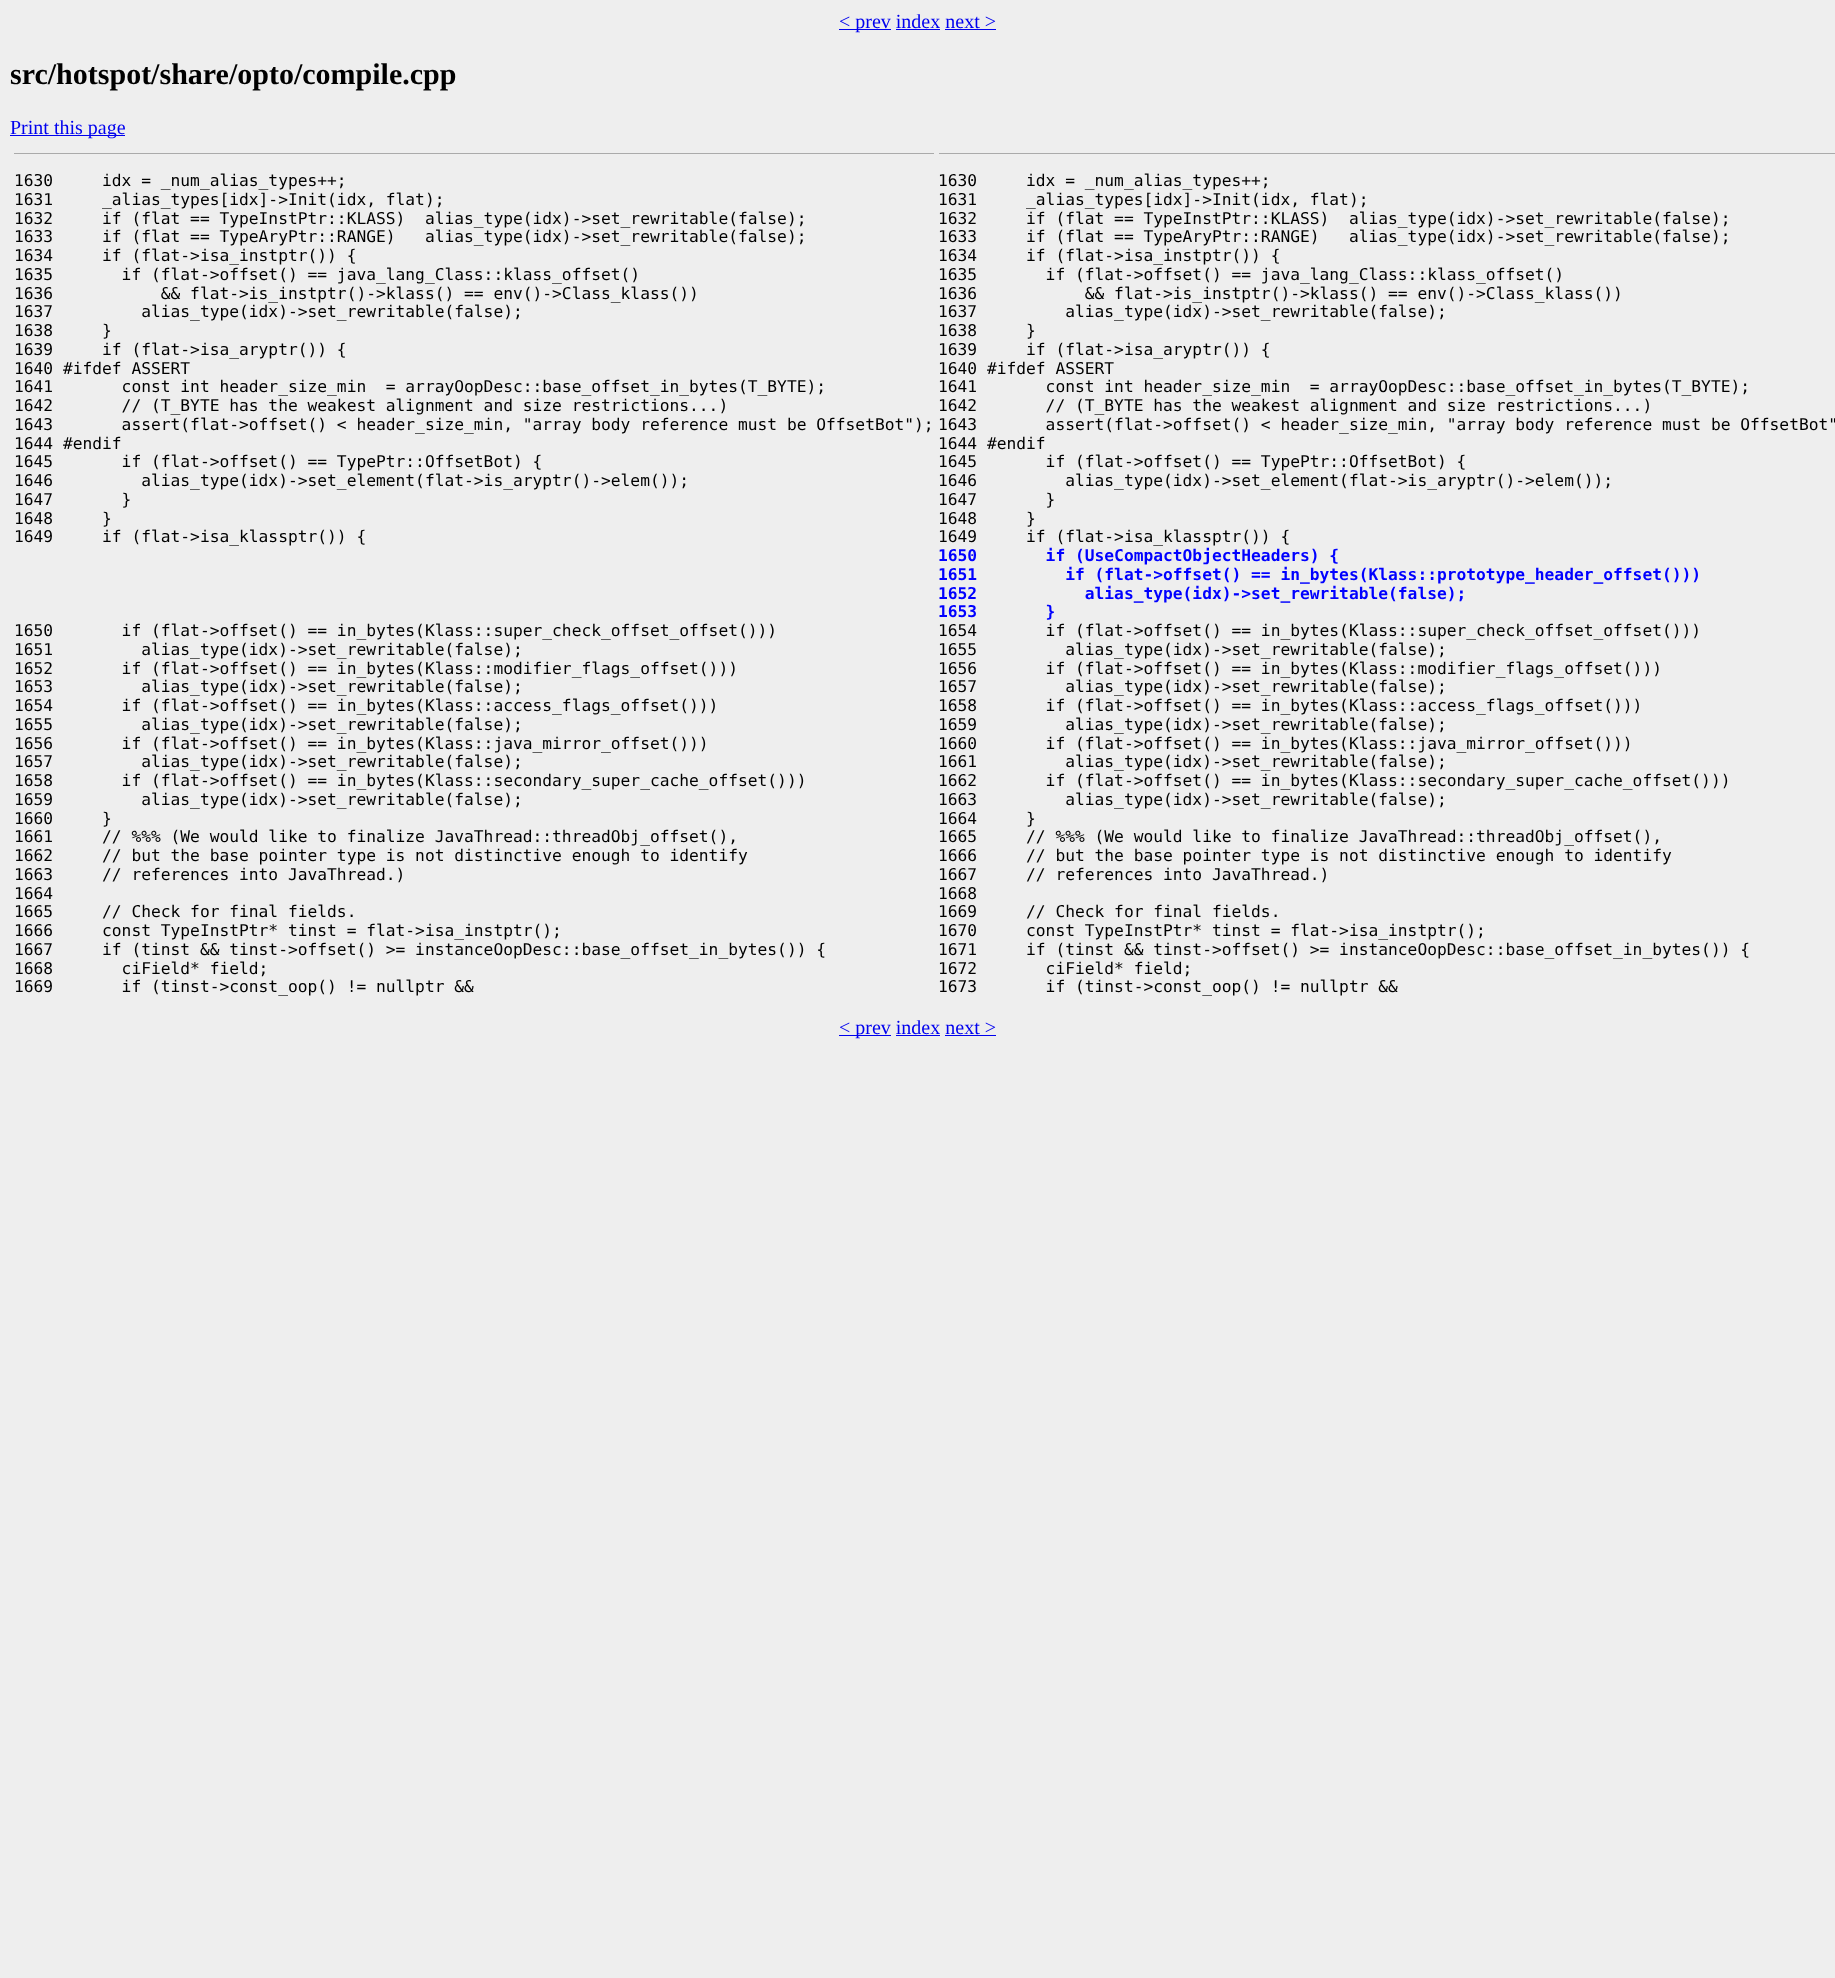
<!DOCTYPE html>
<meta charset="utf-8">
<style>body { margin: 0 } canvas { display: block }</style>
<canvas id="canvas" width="1835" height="1978"></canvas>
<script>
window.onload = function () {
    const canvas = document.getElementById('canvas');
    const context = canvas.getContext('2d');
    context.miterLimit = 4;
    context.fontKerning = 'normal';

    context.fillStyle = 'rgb(238, 238, 238)';
    context.fillRect(0, 0, 1835, 1978);
    context.fillStyle = 'rgb(0, 0, 238)';
    context.fillRect(839, 29, 52, 1);
    context.fillRect(896, 29, 44, 1);
    context.fillRect(945, 29, 51, 1);
    context.fillRect(10, 135, 115, 1);
    context.fillStyle = 'rgb(170, 170, 170)';
    context.fillRect(14, 153, 920, 1);
    context.fillRect(939, 153, 896, 1);
    context.fillStyle = 'rgb(0, 0, 238)';
    context.fillRect(839, 1035, 52, 1);
    context.fillRect(896, 1035, 44, 1);
    context.fillRect(945, 1035, 51, 1);
    context.font = '20px Liberation Serif';
    context.fillText('< prev index next >', 839, 28);
    context.font = 'bold 30px Liberation Serif';
    context.fillStyle = 'rgb(0, 0, 0)';
    context.fillText('src/hotspot/share/opto/compile.cpp', 10, 84);
    context.font = '20px Liberation Serif';
    context.fillStyle = 'rgb(0, 0, 238)';
    context.fillText('Print this page', 10, 134);
    context.font = '16.25px DejaVu Sans Mono';
    context.fillStyle = 'rgb(0, 0, 0)';
    context.fillText('1630     idx = _num_alias_types++;', 14, 186);
    context.fillText('1631     _alias_types[idx]->Init(idx, flat);', 14, 205);
    context.fillText('1632     if (flat == TypeInstPtr::KLASS)  alias_type(idx)->set_rewritable(false);', 14, 224);
    context.fillText('1633     if (flat == TypeAryPtr::RANGE)   alias_type(idx)->set_rewritable(false);', 14, 242);
    context.fillText('1634     if (flat->isa_instptr()) {', 14, 261);
    context.fillText('1635       if (flat->offset() == java_lang_Class::klass_offset()', 14, 280);
    context.fillText('1636           && flat->is_instptr()->klass() == env()->Class_klass())', 14, 299);
    context.fillText('1637         alias_type(idx)->set_rewritable(false);', 14, 317);
    context.fillText('1638     }', 14, 336);
    context.fillText('1639     if (flat->isa_aryptr()) {', 14, 355);
    context.fillText('1640 #ifdef ASSERT', 14, 374);
    context.fillText('1641       const int header_size_min  = arrayOopDesc::base_offset_in_bytes(T_BYTE);', 14, 392);
    context.fillText('1642       // (T_BYTE has the weakest alignment and size restrictions...)', 14, 411);
    context.fillText('1643       assert(flat->offset() < header_size_min, "array body reference must be OffsetBot");', 14, 430);
    context.fillText('1644 #endif', 14, 449);
    context.fillText('1645       if (flat->offset() == TypePtr::OffsetBot) {', 14, 467);
    context.fillText('1646         alias_type(idx)->set_element(flat->is_aryptr()->elem());', 14, 486);
    context.fillText('1647       }', 14, 505);
    context.fillText('1648     }', 14, 524);
    context.fillText('1649     if (flat->isa_klassptr()) {', 14, 542);
    context.fillText('1650       if (flat->offset() == in_bytes(Klass::super_check_offset_offset()))', 14, 636);
    context.fillText('1651         alias_type(idx)->set_rewritable(false);', 14, 655);
    context.fillText('1652       if (flat->offset() == in_bytes(Klass::modifier_flags_offset()))', 14, 674);
    context.fillText('1653         alias_type(idx)->set_rewritable(false);', 14, 692);
    context.fillText('1654       if (flat->offset() == in_bytes(Klass::access_flags_offset()))', 14, 711);
    context.fillText('1655         alias_type(idx)->set_rewritable(false);', 14, 730);
    context.fillText('1656       if (flat->offset() == in_bytes(Klass::java_mirror_offset()))', 14, 749);
    context.fillText('1657         alias_type(idx)->set_rewritable(false);', 14, 767);
    context.fillText('1658       if (flat->offset() == in_bytes(Klass::secondary_super_cache_offset()))', 14, 786);
    context.fillText('1659         alias_type(idx)->set_rewritable(false);', 14, 805);
    context.fillText('1660     }', 14, 824);
    context.fillText('1661     // %%% (We would like to finalize JavaThread::threadObj_offset(),', 14, 842);
    context.fillText('1662     // but the base pointer type is not distinctive enough to identify', 14, 861);
    context.fillText('1663     // references into JavaThread.)', 14, 880);
    context.fillText('1664', 14, 899);
    context.fillText('1665     // Check for final fields.', 14, 917);
    context.fillText('1666     const TypeInstPtr* tinst = flat->isa_instptr();', 14, 936);
    context.fillText('1667     if (tinst && tinst->offset() >= instanceOopDesc::base_offset_in_bytes()) {', 14, 955);
    context.fillText('1668       ciField* field;', 14, 974);
    context.fillText('1669       if (tinst->const_oop() != nullptr &&', 14, 992);
    context.fillText('1630     idx = _num_alias_types++;', 938, 186);
    context.fillText('1631     _alias_types[idx]->Init(idx, flat);', 938, 205);
    context.fillText('1632     if (flat == TypeInstPtr::KLASS)  alias_type(idx)->set_rewritable(false);', 938, 224);
    context.fillText('1633     if (flat == TypeAryPtr::RANGE)   alias_type(idx)->set_rewritable(false);', 938, 242);
    context.fillText('1634     if (flat->isa_instptr()) {', 938, 261);
    context.fillText('1635       if (flat->offset() == java_lang_Class::klass_offset()', 938, 280);
    context.fillText('1636           && flat->is_instptr()->klass() == env()->Class_klass())', 938, 299);
    context.fillText('1637         alias_type(idx)->set_rewritable(false);', 938, 317);
    context.fillText('1638     }', 938, 336);
    context.fillText('1639     if (flat->isa_aryptr()) {', 938, 355);
    context.fillText('1640 #ifdef ASSERT', 938, 374);
    context.fillText('1641       const int header_size_min  = arrayOopDesc::base_offset_in_bytes(T_BYTE);', 938, 392);
    context.fillText('1642       // (T_BYTE has the weakest alignment and size restrictions...)', 938, 411);
    context.fillText('1643       assert(flat->offset() < header_size_min, "array body reference must be OffsetBot"', 938, 430);
    context.fillText('1644 #endif', 938, 449);
    context.fillText('1645       if (flat->offset() == TypePtr::OffsetBot) {', 938, 467);
    context.fillText('1646         alias_type(idx)->set_element(flat->is_aryptr()->elem());', 938, 486);
    context.fillText('1647       }', 938, 505);
    context.fillText('1648     }', 938, 524);
    context.fillText('1649     if (flat->isa_klassptr()) {', 938, 542);
    context.font = 'bold 16.25px DejaVu Sans Mono';
    context.fillStyle = 'rgb(0, 0, 255)';
    context.fillText('1650       if (UseCompactObjectHeaders) {', 938, 561);
    context.fillText('1651         if (flat->offset() == in_bytes(Klass::prototype_header_offset()))', 938, 580);
    context.fillText('1652           alias_type(idx)->set_rewritable(false);', 938, 599);
    context.fillText('1653       }', 938, 617);
    context.font = '16.25px DejaVu Sans Mono';
    context.fillStyle = 'rgb(0, 0, 0)';
    context.fillText('1654       if (flat->offset() == in_bytes(Klass::super_check_offset_offset()))', 938, 636);
    context.fillText('1655         alias_type(idx)->set_rewritable(false);', 938, 655);
    context.fillText('1656       if (flat->offset() == in_bytes(Klass::modifier_flags_offset()))', 938, 674);
    context.fillText('1657         alias_type(idx)->set_rewritable(false);', 938, 692);
    context.fillText('1658       if (flat->offset() == in_bytes(Klass::access_flags_offset()))', 938, 711);
    context.fillText('1659         alias_type(idx)->set_rewritable(false);', 938, 730);
    context.fillText('1660       if (flat->offset() == in_bytes(Klass::java_mirror_offset()))', 938, 749);
    context.fillText('1661         alias_type(idx)->set_rewritable(false);', 938, 767);
    context.fillText('1662       if (flat->offset() == in_bytes(Klass::secondary_super_cache_offset()))', 938, 786);
    context.fillText('1663         alias_type(idx)->set_rewritable(false);', 938, 805);
    context.fillText('1664     }', 938, 824);
    context.fillText('1665     // %%% (We would like to finalize JavaThread::threadObj_offset(),', 938, 842);
    context.fillText('1666     // but the base pointer type is not distinctive enough to identify', 938, 861);
    context.fillText('1667     // references into JavaThread.)', 938, 880);
    context.fillText('1668', 938, 899);
    context.fillText('1669     // Check for final fields.', 938, 917);
    context.fillText('1670     const TypeInstPtr* tinst = flat->isa_instptr();', 938, 936);
    context.fillText('1671     if (tinst && tinst->offset() >= instanceOopDesc::base_offset_in_bytes()) {', 938, 955);
    context.fillText('1672       ciField* field;', 938, 974);
    context.fillText('1673       if (tinst->const_oop() != nullptr &&', 938, 992);
    context.font = '20px Liberation Serif';
    context.fillStyle = 'rgb(0, 0, 238)';
    context.fillText('< prev index next >', 839, 1034);
};
</script>
